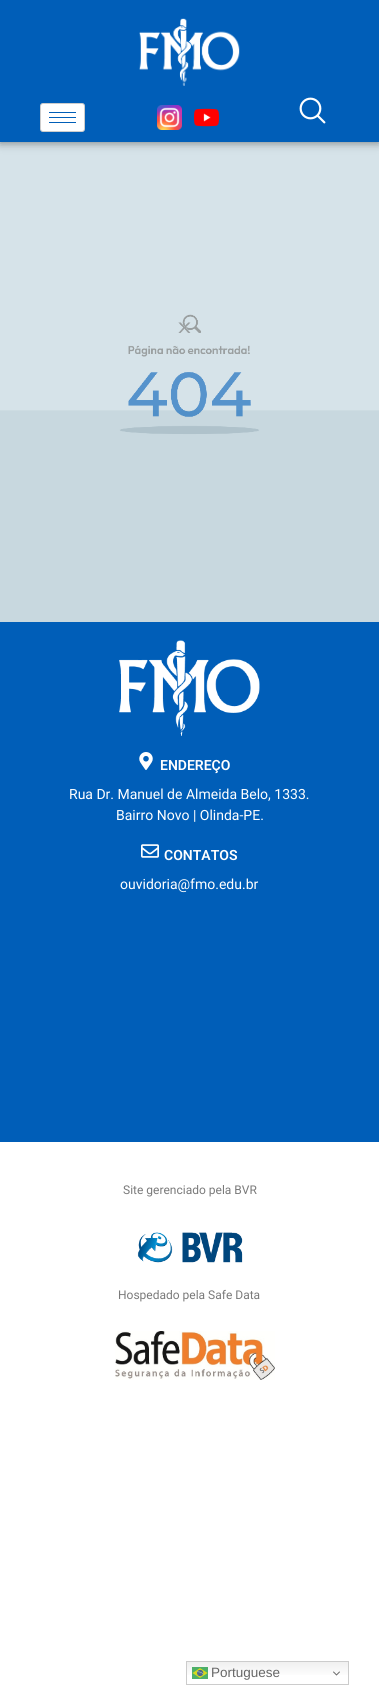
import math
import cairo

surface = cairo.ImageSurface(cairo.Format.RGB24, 379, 1685)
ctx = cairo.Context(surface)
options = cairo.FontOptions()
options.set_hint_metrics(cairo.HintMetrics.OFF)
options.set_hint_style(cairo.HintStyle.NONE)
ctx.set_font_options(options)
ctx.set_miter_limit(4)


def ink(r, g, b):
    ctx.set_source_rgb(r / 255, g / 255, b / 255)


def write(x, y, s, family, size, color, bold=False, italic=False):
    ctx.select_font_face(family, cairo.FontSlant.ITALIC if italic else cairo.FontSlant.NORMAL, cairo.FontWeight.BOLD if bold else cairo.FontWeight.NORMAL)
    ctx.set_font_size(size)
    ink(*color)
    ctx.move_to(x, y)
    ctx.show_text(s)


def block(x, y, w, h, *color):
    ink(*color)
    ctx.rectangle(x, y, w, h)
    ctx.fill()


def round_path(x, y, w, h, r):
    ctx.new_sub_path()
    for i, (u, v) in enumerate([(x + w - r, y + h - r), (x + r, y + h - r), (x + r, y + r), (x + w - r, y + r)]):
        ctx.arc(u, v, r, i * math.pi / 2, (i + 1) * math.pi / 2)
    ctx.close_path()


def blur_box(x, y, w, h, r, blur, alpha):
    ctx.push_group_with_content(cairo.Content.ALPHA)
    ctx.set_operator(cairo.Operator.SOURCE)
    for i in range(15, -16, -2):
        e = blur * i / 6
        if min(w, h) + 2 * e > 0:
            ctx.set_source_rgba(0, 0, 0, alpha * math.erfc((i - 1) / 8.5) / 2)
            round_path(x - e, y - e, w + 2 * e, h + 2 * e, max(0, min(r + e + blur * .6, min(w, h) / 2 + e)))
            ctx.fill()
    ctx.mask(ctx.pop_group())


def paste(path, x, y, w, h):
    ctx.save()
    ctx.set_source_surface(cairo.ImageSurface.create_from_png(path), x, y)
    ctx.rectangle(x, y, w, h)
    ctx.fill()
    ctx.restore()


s1 = dict(family="Roboto SemiBold", size=14, color=(255, 255, 255))
s2 = dict(family="Roboto", size=14, color=(255, 255, 255))
s3 = dict(family="Roboto", size=12, color=(122, 122, 122))
s4 = dict(family="Liberation Sans", size=13.5, color=(102, 102, 102))

ink(255, 255, 255)
ctx.paint()
paste("pic5.png", 0, 142, 379, 480)
ink(0, 0, 0)
blur_box(0, 0, 379, 142, 0, 5, 0.5)
block(0, 0, 379, 142, 0, 94, 184)
paste("pic1.png", 139, 18, 101, 68)
ink(255, 255, 255)
round_path(40, 103, 45, 29, 3)
ctx.fill()
round_path(40.5, 103.5, 44, 28, 2.5)
ctx.set_source_rgba(0, 0, 0, 0.2)
ctx.set_line_width(1)
ctx.stroke()
block(49, 112, 27, 1, 0, 94, 184)
block(49, 117, 27, 1, 0, 94, 184)
block(49, 122, 27, 1, 0, 94, 184)
paste("pic2.png", 157, 105, 25, 25)
paste("pic3.png", 194, 108, 25, 19)
paste("pic4.png", 299, 97, 27, 27)
block(0, 622, 379, 520, 0, 94, 184)
paste("pic6.png", 119, 640, 141, 96)
paste("pic7.png", 139, 752, 14, 18)
write(160, 770, "ENDEREÇO", **s1)
write(69, 799, "Rua Dr. Manuel de Almeida Belo, 1333.", **s2)
write(116, 820, "Bairro Novo | Olinda-PE.", **s2)
paste("pic8.png", 141, 844, 18, 14)
write(164, 860, "CONTATOS", **s1)
write(120, 889, "ouvidoria@fmo.edu.br", **s2)
write(123, 1194, "Site gerenciado pela BVR", **s3)
paste("pic9.png", 137, 1232, 106, 31)
write(118, 1299, "Hospedado pela Safe Data", **s3)
paste("pic10.png", 115, 1331, 160, 49)
gradient = cairo.LinearGradient(268, 1661, 268, 1685)
gradient.add_color_stop_rgba(0, 0.937, 0.937, 0.937, 1)
gradient.add_color_stop_rgba(0.7, 1, 1, 1, 1)
ctx.set_source(gradient)
ctx.rectangle(187, 1662, 161, 13)
ctx.fill()
ctx.rectangle(186.5, 1661.5, 162, 23)
ink(204, 204, 204)
ctx.stroke()
paste("pic11.png", 192, 1667, 16, 12)
write(211, 1677, "Portuguese", **s4)
paste("pic12.png", 333, 1671, 7, 5)
surface.write_to_png("screenshot.png")
